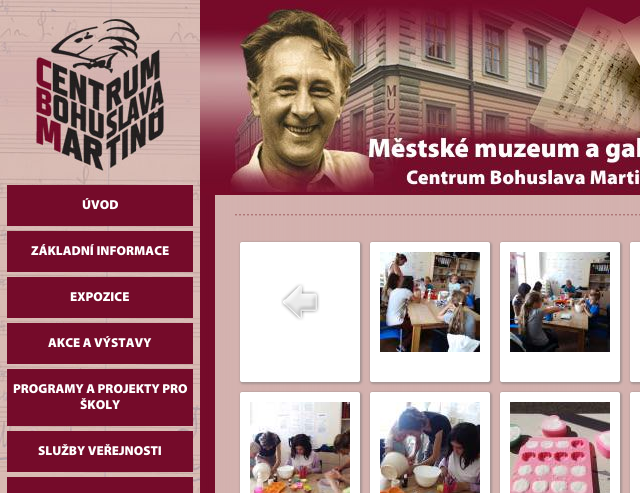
import math
import cairo

surface = cairo.ImageSurface(cairo.Format.RGB24, 640, 493)
ctx = cairo.Context(surface)
options = cairo.FontOptions()
options.set_hint_metrics(cairo.HintMetrics.OFF)
options.set_hint_style(cairo.HintStyle.NONE)
ctx.set_font_options(options)
ctx.set_miter_limit(4)


def ink(r, g, b):
    ctx.set_source_rgb(r / 255, g / 255, b / 255)


def write(x, y, s, family, size, color, bold=False, italic=False):
    ctx.select_font_face(family, cairo.FontSlant.ITALIC if italic else cairo.FontSlant.NORMAL, cairo.FontWeight.BOLD if bold else cairo.FontWeight.NORMAL)
    ctx.set_font_size(size)
    ink(*color)
    ctx.move_to(x, y)
    ctx.show_text(s)


def block(x, y, w, h, *color):
    ink(*color)
    ctx.rectangle(x, y, w, h)
    ctx.fill()


def round_path(x, y, w, h, r):
    ctx.new_sub_path()
    for i, (u, v) in enumerate([(x + w - r, y + h - r), (x + r, y + h - r), (x + r, y + r), (x + w - r, y + r)]):
        ctx.arc(u, v, r, i * math.pi / 2, (i + 1) * math.pi / 2)
    ctx.close_path()


def blur_box(x, y, w, h, r, blur, alpha):
    ctx.push_group_with_content(cairo.Content.ALPHA)
    ctx.set_operator(cairo.Operator.SOURCE)
    for i in range(15, -16, -2):
        e = blur * i / 6
        if min(w, h) + 2 * e > 0:
            ctx.set_source_rgba(0, 0, 0, alpha * math.erfc((i - 1) / 8.5) / 2)
            round_path(x - e, y - e, w + 2 * e, h + 2 * e, max(0, min(r + e + blur * .6, min(w, h) / 2 + e)))
            ctx.fill()
    ctx.mask(ctx.pop_group())


def paste(path, x, y, w, h):
    ctx.save()
    ctx.set_source_surface(cairo.ImageSurface.create_from_png(path), x, y)
    ctx.rectangle(x, y, w, h)
    ctx.fill()
    ctx.restore()


s1 = dict(family="Myriad Black", size=13, color=(255, 255, 255))

ink(255, 255, 255)
ctx.paint()
paste("pic1.png", 200, 195, 440, 298)
paste("pic2.png", 0, 0, 200, 493)
block(7, 185, 186, 41, 117, 11, 42)
write(82, 209, "ÚVOD", **s1)
block(7, 231, 186, 41, 117, 11, 42)
write(31, 255, "ZÁKLADNÍ INFORMACE", **s1)
block(7, 277, 186, 41, 117, 11, 42)
write(70, 301, "EXPOZICE", **s1)
block(7, 323, 186, 41, 117, 11, 42)
write(48, 347, "AKCE A VÝSTAVY", **s1)
block(7, 369, 186, 57, 117, 11, 42)
write(13, 393, "PROGRAMY A PROJEKTY PRO", **s1)
write(80, 409, "ŠKOLY", **s1)
block(7, 431, 186, 41, 117, 11, 42)
write(38, 455, "SLUŽBY VEŘEJNOSTI", **s1)
block(7, 477, 186, 16, 117, 11, 42)
paste("pic3.png", 200, 0, 440, 195)
paste("pic4.png", 235, 214, 405, 2)
ink(120, 120, 120)
blur_box(240, 242, 122, 142, 3, 1, 0.5)
ink(255, 255, 255)
round_path(240, 242, 120, 140, 2)
ctx.fill()
paste("pic5.png", 281, 283, 39, 38)
ink(120, 120, 120)
blur_box(370, 242, 122, 142, 3, 1, 0.5)
ink(255, 255, 255)
round_path(370, 242, 120, 140, 2)
ctx.fill()
paste("pic6.png", 380, 252, 100, 100)
ink(120, 120, 120)
blur_box(500, 242, 122, 142, 3, 1, 0.5)
ink(255, 255, 255)
round_path(500, 242, 120, 140, 2)
ctx.fill()
paste("pic7.png", 510, 252, 100, 100)
ink(120, 120, 120)
blur_box(630, 242, 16, 142, 3, 1, 0.5)
ink(255, 255, 255)
round_path(630, 242, 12, 140, 2)
ctx.fill()
ink(120, 120, 120)
blur_box(240, 392, 122, 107, 3, 1, 0.5)
ink(255, 255, 255)
round_path(240, 392, 120, 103, 2)
ctx.fill()
paste("pic8.png", 250, 402, 100, 91)
ink(120, 120, 120)
blur_box(370, 392, 122, 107, 3, 1, 0.5)
ink(255, 255, 255)
round_path(370, 392, 120, 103, 2)
ctx.fill()
paste("pic9.png", 380, 402, 100, 91)
ink(120, 120, 120)
blur_box(500, 392, 122, 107, 3, 1, 0.5)
ink(255, 255, 255)
round_path(500, 392, 120, 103, 2)
ctx.fill()
paste("pic10.png", 510, 402, 100, 91)
ink(120, 120, 120)
blur_box(630, 392, 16, 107, 3, 1, 0.5)
ink(255, 255, 255)
round_path(630, 392, 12, 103, 2)
ctx.fill()
surface.write_to_png("screenshot.png")
